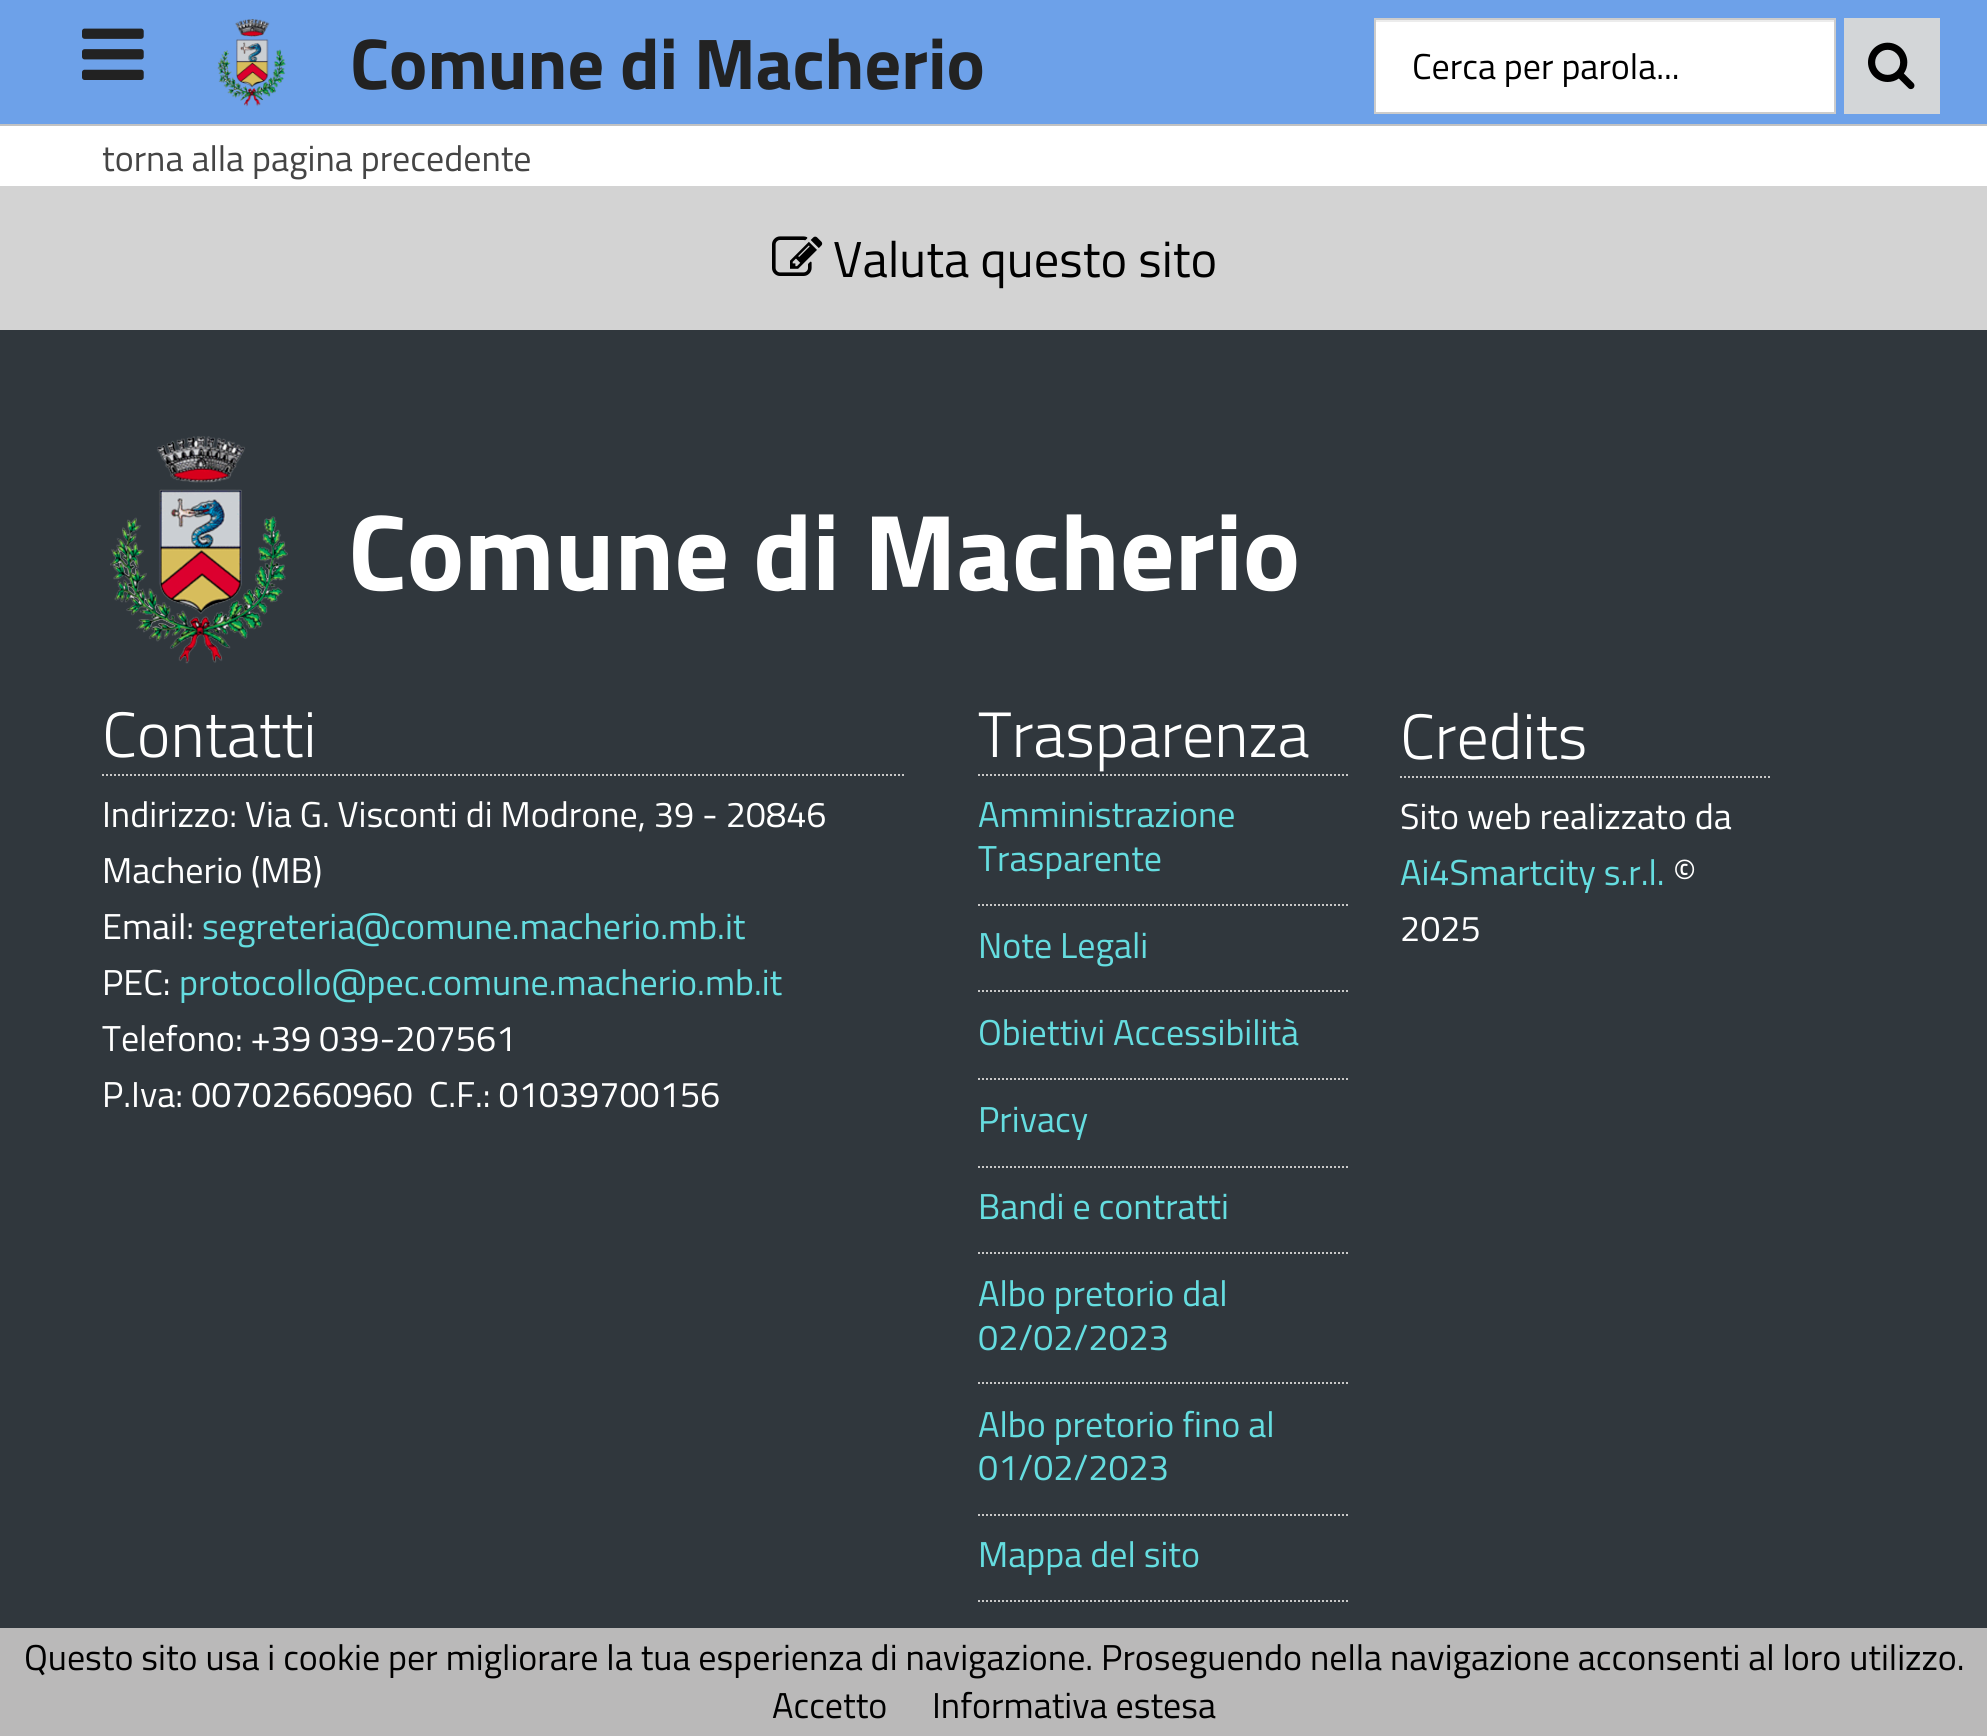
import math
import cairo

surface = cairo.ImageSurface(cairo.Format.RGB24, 1987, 1736)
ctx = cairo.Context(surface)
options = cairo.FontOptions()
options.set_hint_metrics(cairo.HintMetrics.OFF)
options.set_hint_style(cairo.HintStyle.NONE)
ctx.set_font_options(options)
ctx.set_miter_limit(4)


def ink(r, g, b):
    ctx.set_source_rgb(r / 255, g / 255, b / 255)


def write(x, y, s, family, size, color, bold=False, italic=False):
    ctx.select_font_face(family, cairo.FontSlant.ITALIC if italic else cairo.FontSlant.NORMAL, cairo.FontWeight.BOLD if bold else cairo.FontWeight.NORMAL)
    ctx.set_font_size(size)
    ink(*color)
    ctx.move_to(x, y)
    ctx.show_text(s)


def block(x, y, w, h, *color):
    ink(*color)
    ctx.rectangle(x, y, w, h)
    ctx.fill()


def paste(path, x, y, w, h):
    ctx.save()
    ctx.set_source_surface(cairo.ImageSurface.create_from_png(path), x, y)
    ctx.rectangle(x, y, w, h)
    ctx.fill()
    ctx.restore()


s1 = dict(family="Titillium Web", size=72, color=(34, 34, 34), bold=True)
s2 = dict(family="Titillium Web", size=36, color=(0, 0, 0))
s3 = dict(family="Titillium Web", size=36, color=(69, 69, 69))
s4 = dict(family="Titillium Web", size=50.5, color=(0, 0, 0))
s5 = dict(family="Titillium Web", size=108, color=(255, 255, 255), bold=True)
s6 = dict(family="Titillium Web Light", size=64, color=(255, 255, 255))
s7 = dict(family="Titillium Web", size=36, color=(255, 255, 255))
s8 = dict(family="Titillium Web", size=36, color=(101, 221, 224))

ink(255, 255, 255)
ctx.paint()
block(0, 124, 1987, 2, 194, 194, 194)
block(0, 0, 1987, 124, 109, 161, 233)
paste("pic1.png", 82, 28, 62, 52)
paste("pic2.png", 217, 19, 69, 88)
write(350, 89, "Comune di Macherio", **s1)
block(1376, 22, 458, 90, 255, 255, 255)
block(1376, 20, 458, 2, 236, 236, 236)
ctx.rectangle(1375, 19, 460, 94)
ink(204, 204, 204)
ctx.stroke()
write(1412, 79, "Cerca per parola...", **s2)
block(1844, 18, 96, 96, 211, 214, 216)
paste("pic3.png", 1868, 42, 47, 48)
write(102, 171, "torna alla pagina precedente", **s3)
block(0, 186, 1987, 144, 211, 211, 211)
paste("pic4.png", 772, 236, 51, 40)
write(833, 277, "Valuta questo sito", **s4)
block(0, 330, 1987, 1298, 48, 55, 61)
paste("pic5.png", 110, 436, 178, 228)
write(348, 590, "Comune di Macherio", **s5)
write(102, 757, "Contatti", **s6)
ctx.new_path()
ctx.move_to(102, 775)
ctx.line_to(904, 775)
ink(200, 200, 200)
ctx.set_dash([2, 2])
ctx.stroke()
write(102, 827, "Indirizzo: Via G. Visconti di Modrone, 39 - 20846", **s7)
write(102, 883, "Macherio (MB)", **s7)
write(102, 939, "Email:", **s7)
write(202, 939, "segreteria@comune.macherio.mb.it", **s8)
write(102, 995, "PEC:", **s7)
write(179, 995, "protocollo@pec.comune.macherio.mb.it", **s8)
write(102, 1051, "Telefono: +39 039-207561", **s7)
write(102, 1107, "P.Iva: 00702660960  C.F.: 01039700156", **s7)
write(978, 757, "Trasparenza", **s6)
ctx.new_path()
ctx.move_to(978, 775)
ctx.line_to(1348, 775)
ink(200, 200, 200)
ctx.stroke()
write(978, 827, "Amministrazione", **s8)
write(978, 871, "Trasparente", **s8)
ctx.new_path()
ctx.move_to(978, 905)
ctx.line_to(1348, 905)
ink(200, 200, 200)
ctx.stroke()
write(978, 958, "Note Legali", **s8)
ctx.new_path()
ctx.move_to(978, 991)
ctx.line_to(1348, 991)
ink(200, 200, 200)
ctx.stroke()
write(978, 1045, "Obiettivi Accessibilità", **s8)
ctx.new_path()
ctx.move_to(978, 1079)
ctx.line_to(1348, 1079)
ink(200, 200, 200)
ctx.stroke()
write(978, 1132, "Privacy", **s8)
ctx.new_path()
ctx.move_to(978, 1167)
ctx.line_to(1348, 1167)
ink(200, 200, 200)
ctx.stroke()
write(978, 1219, "Bandi e contratti", **s8)
ctx.new_path()
ctx.move_to(978, 1253)
ctx.line_to(1348, 1253)
ink(200, 200, 200)
ctx.stroke()
write(978, 1306, "Albo pretorio dal", **s8)
write(978, 1350, "02/02/2023", **s8)
ctx.new_path()
ctx.move_to(978, 1383)
ctx.line_to(1348, 1383)
ink(200, 200, 200)
ctx.stroke()
write(978, 1437, "Albo pretorio fino al", **s8)
write(978, 1480, "01/02/2023", **s8)
ctx.new_path()
ctx.move_to(978, 1515)
ctx.line_to(1348, 1515)
ink(200, 200, 200)
ctx.stroke()
write(978, 1567, "Mappa del sito", **s8)
ctx.new_path()
ctx.move_to(978, 1601)
ctx.line_to(1348, 1601)
ink(200, 200, 200)
ctx.stroke()
write(1400, 759, "Credits", **s6)
ctx.new_path()
ctx.move_to(1400, 777)
ctx.line_to(1770, 777)
ink(200, 200, 200)
ctx.stroke()
write(1400, 829, "Sito web realizzato da", **s7)
write(1400, 885, "Ai4Smartcity s.r.l.", **s8)
write(1673, 885, "©", **s7)
write(1400, 941, "2025", **s7)
block(0, 1628, 1987, 108, 186, 185, 185)
write(24, 1670, "Questo sito usa i cookie per migliorare la tua esperienza di navigazione. Proseguendo nella navigazione acconsenti al loro utilizzo.", **s2)
write(772, 1718, "Accetto", **s2)
write(932, 1718, "Informativa estesa", **s2)
surface.write_to_png("screenshot.png")
